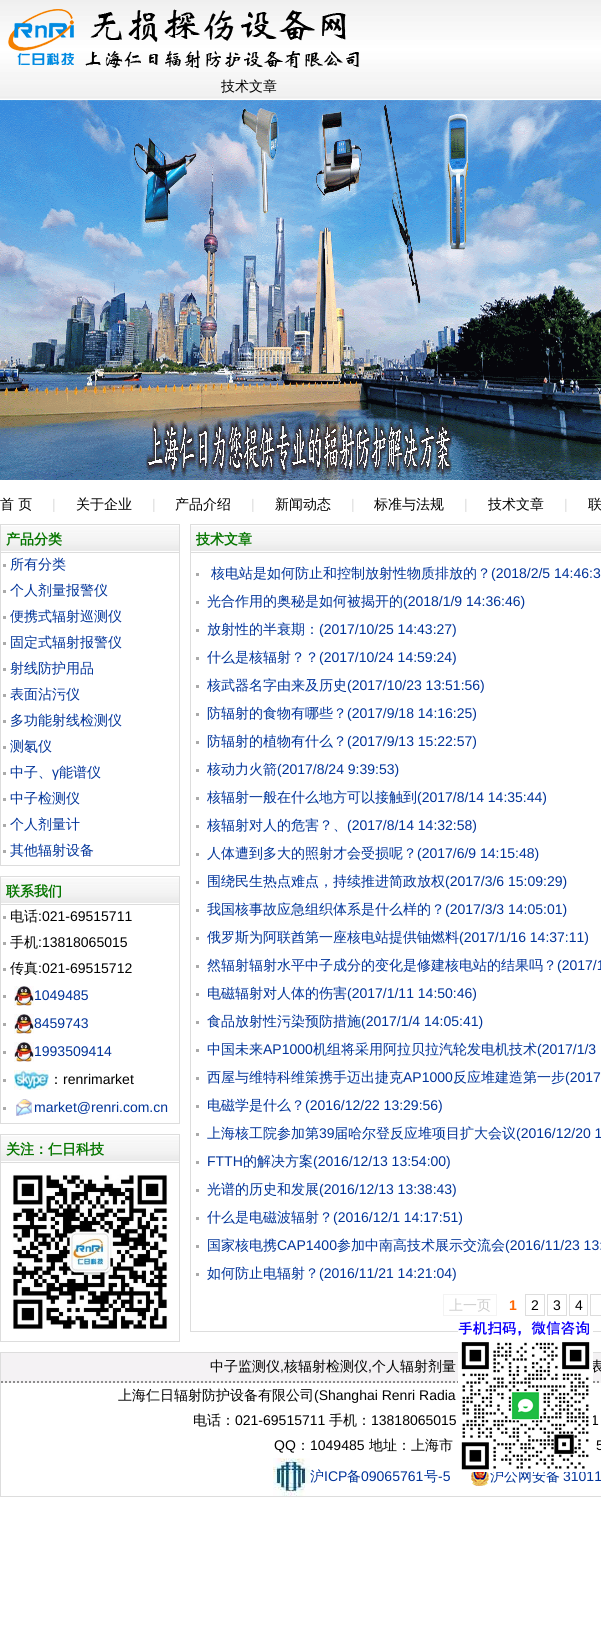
import math
import cairo

surface = cairo.ImageSurface(cairo.Format.RGB24, 601, 1629)
ctx = cairo.Context(surface)
options = cairo.FontOptions()
options.set_hint_metrics(cairo.HintMetrics.OFF)
options.set_hint_style(cairo.HintStyle.NONE)
ctx.set_font_options(options)
ctx.set_miter_limit(4)


def ink(r, g, b):
    ctx.set_source_rgb(r / 255, g / 255, b / 255)


def write(x, y, s, family, size, color, bold=False, italic=False):
    ctx.select_font_face(family, cairo.FontSlant.ITALIC if italic else cairo.FontSlant.NORMAL, cairo.FontWeight.BOLD if bold else cairo.FontWeight.NORMAL)
    ctx.set_font_size(size)
    ink(*color)
    ctx.move_to(x, y)
    ctx.show_text(s)


def block(x, y, w, h, *color):
    ink(*color)
    ctx.rectangle(x, y, w, h)
    ctx.fill()


def paste(path, x, y, w, h):
    ctx.save()
    ctx.set_source_surface(cairo.ImageSurface.create_from_png(path), x, y)
    ctx.rectangle(x, y, w, h)
    ctx.fill()
    ctx.restore()


s1 = dict(family="WenQuanYi Zen Hei Medium", size=14, color=(0, 0, 0))
s2 = dict(family="Liberation Sans", size=14, color=(221, 221, 221))
s3 = dict(family="Liberation Sans", size=14, color=(0, 0, 0))
s4 = dict(family="WenQuanYi Zen Hei Medium", size=14, color=(0, 51, 153))
s5 = dict(family="Liberation Sans", size=14, color=(0, 51, 153))
s6 = dict(family="WenQuanYi Zen Hei", size=14, color=(6, 118, 0), bold=True)
s7 = dict(family="WenQuanYi Zen Hei Medium", size=14, color=(204, 204, 204))
s8 = dict(family="Liberation Sans", size=14, color=(255, 102, 0), bold=True)

ink(255, 255, 255)
ctx.paint()
paste("pic1.png", 0, 0, 601, 99)
paste("pic2.png", 8, 9, 351, 59)
write(221, 91, "技术文章", **s1)
paste("pic3.png", 0, 100, 601, 380)
write(0, 509, "首 页", **s1)
write(52, 509, "|", **s2)
write(76, 509, "关于企业", **s1)
write(152, 509, "|", **s2)
write(175, 509, "产品介绍", **s1)
write(251, 509, "|", **s2)
write(275, 509, "新闻动态", **s1)
write(351, 509, "|", **s2)
write(374, 509, "标准与法规", **s1)
write(464, 509, "|", **s2)
write(488, 509, "技术文章", **s1)
write(564, 509, "|", **s2)
write(588, 509, "联", **s1)
ctx.rectangle(190.5, 524.5, 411, 807)
ink(221, 221, 221)
ctx.set_line_width(1)
ctx.stroke()
block(1, 1353, 600, 30, 244, 242, 244)
ctx.rectangle(0.5, 1352.5, 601, 144)
ink(221, 221, 221)
ctx.stroke()
ctx.new_path()
ctx.move_to(1, 1382)
ctx.line_to(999, 1382)
ink(141, 141, 141)
ctx.set_line_width(2)
ctx.set_dash([2, 2])
ctx.stroke()
write(590, 1371, "表", **s1)
write(591, 1425, "1", **s3)
write(490, 1481, "沪公网安备", **s4)
write(563, 1481, "31011", **s5)
paste("pic4.png", 458, 1321, 135, 151)
ctx.rectangle(0.5, 524.5, 179, 341)
ink(221, 221, 221)
ctx.set_line_width(1)
ctx.set_dash([])
ctx.stroke()
paste("pic5.png", 1, 526, 178, 27)
write(6, 544, "产品分类", **s6)
block(3, 564, 3, 3, 170, 170, 170)
write(10, 569, "所有分类", **s4)
block(3, 590, 3, 3, 170, 170, 170)
write(10, 595, "个人剂量报警仪", **s4)
block(3, 616, 3, 3, 170, 170, 170)
write(10, 621, "便携式辐射巡测仪", **s4)
block(3, 642, 3, 3, 170, 170, 170)
write(10, 647, "固定式辐射报警仪", **s4)
block(3, 668, 3, 3, 170, 170, 170)
write(10, 673, "射线防护用品", **s4)
block(3, 694, 3, 3, 170, 170, 170)
write(10, 699, "表面沾污仪", **s4)
block(3, 720, 3, 3, 170, 170, 170)
write(10, 725, "多功能射线检测仪", **s4)
block(3, 746, 3, 3, 170, 170, 170)
write(10, 751, "测氡仪", **s4)
block(3, 772, 3, 3, 170, 170, 170)
write(10, 777, "中子、", **s4)
write(52, 777, "γ", **s5)
write(59, 777, "能谱仪", **s4)
block(3, 798, 3, 3, 170, 170, 170)
write(10, 803, "中子检测仪", **s4)
block(3, 824, 3, 3, 170, 170, 170)
write(10, 829, "个人剂量计", **s4)
block(3, 850, 3, 3, 170, 170, 170)
write(10, 855, "其他辐射设备", **s4)
ctx.rectangle(0.5, 876.5, 179, 247)
ink(221, 221, 221)
ctx.stroke()
paste("pic5.png", 1, 878, 178, 27)
write(6, 896, "联系我们", **s6)
block(3, 916, 3, 3, 170, 170, 170)
write(10, 921, "电话", **s1)
write(38, 921, ":021-69515711", **s3)
block(3, 942, 3, 3, 170, 170, 170)
write(10, 947, "手机", **s1)
write(38, 947, ":13818065015", **s3)
block(3, 968, 3, 3, 170, 170, 170)
write(10, 973, "传真", **s1)
write(38, 973, ":021-69515712", **s3)
block(3, 995, 3, 3, 170, 170, 170)
paste("pic6.png", 14, 986, 20, 20)
write(34, 1000, "1049485", **s5)
block(3, 1023, 3, 3, 170, 170, 170)
paste("pic6.png", 14, 1014, 20, 20)
write(34, 1028, "8459743", **s5)
block(3, 1051, 3, 3, 170, 170, 170)
paste("pic7.png", 14, 1042, 20, 20)
write(34, 1056, "1993509414", **s5)
block(3, 1079, 3, 3, 170, 170, 170)
paste("pic8.png", 14, 1070, 35, 20)
write(49, 1084, "：", **s1)
write(63, 1084, "renrimarket", **s3)
block(3, 1107, 3, 3, 170, 170, 170)
paste("pic9.png", 16, 1099, 16, 17)
write(34, 1112, "market@renri.com.cn", **s5)
ctx.rectangle(0.5, 1134.5, 179, 207)
ink(221, 221, 221)
ctx.stroke()
paste("pic5.png", 1, 1136, 178, 27)
write(6, 1154, "关注：仁日科技", **s6)
paste("pic10.png", 12, 1174, 156, 156)
paste("pic11.png", 191, 526, 410, 27)
write(196, 544, "技术文章", **s6)
block(196, 573, 3, 3, 170, 170, 170)
write(211, 578, "核电站是如何防止和控制放射性物质排放的？", **s4)
write(491, 578, "(2018/2/5 14:46:3", **s5)
block(196, 601, 3, 3, 170, 170, 170)
write(207, 606, "光合作用的奥秘是如何被揭开的", **s4)
write(403, 606, "(2018/1/9 14:36:46)", **s5)
block(196, 629, 3, 3, 170, 170, 170)
write(207, 634, "放射性的半衰期：", **s4)
write(319, 634, "(2017/10/25 14:43:27)", **s5)
block(196, 657, 3, 3, 170, 170, 170)
write(207, 662, "什么是核辐射？？", **s4)
write(319, 662, "(2017/10/24 14:59:24)", **s5)
block(196, 685, 3, 3, 170, 170, 170)
write(207, 690, "核武器名字由来及历史", **s4)
write(347, 690, "(2017/10/23 13:51:56)", **s5)
block(196, 713, 3, 3, 170, 170, 170)
write(207, 718, "防辐射的食物有哪些？", **s4)
write(347, 718, "(2017/9/18 14:16:25)", **s5)
block(196, 741, 3, 3, 170, 170, 170)
write(207, 746, "防辐射的植物有什么？", **s4)
write(347, 746, "(2017/9/13 15:22:57)", **s5)
block(196, 769, 3, 3, 170, 170, 170)
write(207, 774, "核动力火箭", **s4)
write(277, 774, "(2017/8/24 9:39:53)", **s5)
block(196, 797, 3, 3, 170, 170, 170)
write(207, 802, "核辐射一般在什么地方可以接触到", **s4)
write(417, 802, "(2017/8/14 14:35:44)", **s5)
block(196, 825, 3, 3, 170, 170, 170)
write(207, 830, "核辐射对人的危害？、", **s4)
write(347, 830, "(2017/8/14 14:32:58)", **s5)
block(196, 853, 3, 3, 170, 170, 170)
write(207, 858, "人体遭到多大的照射才会受损呢？", **s4)
write(417, 858, "(2017/6/9 14:15:48)", **s5)
block(196, 881, 3, 3, 170, 170, 170)
write(207, 886, "围绕民生热点难点，持续推进简政放权", **s4)
write(445, 886, "(2017/3/6 15:09:29)", **s5)
block(196, 909, 3, 3, 170, 170, 170)
write(207, 914, "我国核事故应急组织体系是什么样的？", **s4)
write(445, 914, "(2017/3/3 14:05:01)", **s5)
block(196, 937, 3, 3, 170, 170, 170)
write(207, 942, "俄罗斯为阿联酋第一座核电站提供铀燃料", **s4)
write(459, 942, "(2017/1/16 14:37:11)", **s5)
block(196, 965, 3, 3, 170, 170, 170)
write(207, 970, "然辐射辐射水平中子成分的变化是修建核电站的结果吗？", **s4)
write(557, 970, "(2017/1", **s5)
block(196, 993, 3, 3, 170, 170, 170)
write(207, 998, "电磁辐射对人体的伤害", **s4)
write(347, 998, "(2017/1/11 14:50:46)", **s5)
block(196, 1021, 3, 3, 170, 170, 170)
write(207, 1026, "食品放射性污染预防措施", **s4)
write(361, 1026, "(2017/1/4 14:05:41)", **s5)
block(196, 1049, 3, 3, 170, 170, 170)
write(207, 1054, "中国未来", **s4)
write(263, 1054, "AP1000", **s5)
write(313, 1054, "机组将采用阿拉贝拉汽轮发电机技术", **s4)
write(537, 1054, "(2017/1/3", **s5)
block(196, 1077, 3, 3, 170, 170, 170)
write(207, 1082, "西屋与维特科维策携手迈出捷克", **s4)
write(403, 1082, "AP1000", **s5)
write(453, 1082, "反应堆建造第一步", **s4)
write(565, 1082, "(2017", **s5)
block(196, 1105, 3, 3, 170, 170, 170)
write(207, 1110, "电磁学是什么？", **s4)
write(305, 1110, "(2016/12/22 13:29:56)", **s5)
block(196, 1133, 3, 3, 170, 170, 170)
write(207, 1138, "上海核工院参加第", **s4)
write(319, 1138, "39", **s5)
write(334, 1138, "届哈尔登反应堆项目扩大会议", **s4)
write(516, 1138, "(2016/12/20 1", **s5)
block(196, 1161, 3, 3, 170, 170, 170)
write(207, 1166, "FTTH", **s5)
write(243, 1166, "的解决方案", **s4)
write(313, 1166, "(2016/12/13 13:54:00)", **s5)
block(196, 1189, 3, 3, 170, 170, 170)
write(207, 1194, "光谱的历史和发展", **s4)
write(319, 1194, "(2016/12/13 13:38:43)", **s5)
block(196, 1217, 3, 3, 170, 170, 170)
write(207, 1222, "什么是电磁波辐射？", **s4)
write(333, 1222, "(2016/12/1 14:17:51)", **s5)
block(196, 1245, 3, 3, 170, 170, 170)
write(207, 1250, "国家核电携", **s4)
write(277, 1250, "CAP1400", **s5)
write(337, 1250, "参加中南高技术展示交流会", **s4)
write(505, 1250, "(2016/11/23 13:", **s5)
block(196, 1273, 3, 3, 170, 170, 170)
write(207, 1278, "如何防止电辐射？", **s4)
write(319, 1278, "(2016/11/21 14:21:04)", **s5)
ctx.rectangle(443.5, 1294.5, 53, 21)
ink(243, 243, 243)
ctx.stroke()
write(449, 1310, "上一页", **s7)
write(509, 1310, "1", **s8)
ctx.rectangle(525.5, 1294.5, 19, 21)
ink(221, 221, 221)
ctx.stroke()
write(531, 1310, "2", **s3)
ctx.rectangle(547.5, 1294.5, 19, 21)
ink(221, 221, 221)
ctx.stroke()
write(553, 1310, "3", **s3)
ctx.rectangle(569.5, 1294.5, 18, 21)
ink(221, 221, 221)
ctx.stroke()
write(575, 1310, "4", **s3)
ctx.rectangle(590.5, 1294.5, 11, 21)
ink(221, 221, 221)
ctx.stroke()
write(210, 1371, "中子监测仪", **s1)
write(280, 1371, ",", **s3)
write(284, 1371, "核辐射检测仪", **s1)
write(368, 1371, ",", **s3)
write(372, 1371, "个人辐射剂量", **s1)
write(118, 1400, "上海仁日辐射防护设备有限公司", **s1)
write(314, 1400, "(Shanghai Renri Radia", **s3)
write(193, 1425, "电话：", **s1)
write(235, 1425, "021-69515711", **s3)
write(329, 1425, "手机：", **s1)
write(371, 1425, "13818065015", **s3)
write(274, 1450, "QQ", **s3)
write(296, 1450, "：", **s1)
write(310, 1450, "1049485", **s3)
write(369, 1450, "地址：上海市", **s1)
write(596, 1450, "5", **s3)
paste("pic12.png", 273, 1458, 37, 38)
write(310, 1481, "沪", **s4)
write(324, 1481, "ICP", **s5)
write(347, 1481, "备", **s4)
write(361, 1481, "09065761", **s5)
write(424, 1481, "号", **s4)
write(438, 1481, "-5", **s5)
paste("pic13.png", 471, 1472, 18, 14)
surface.write_to_png("screenshot.png")
